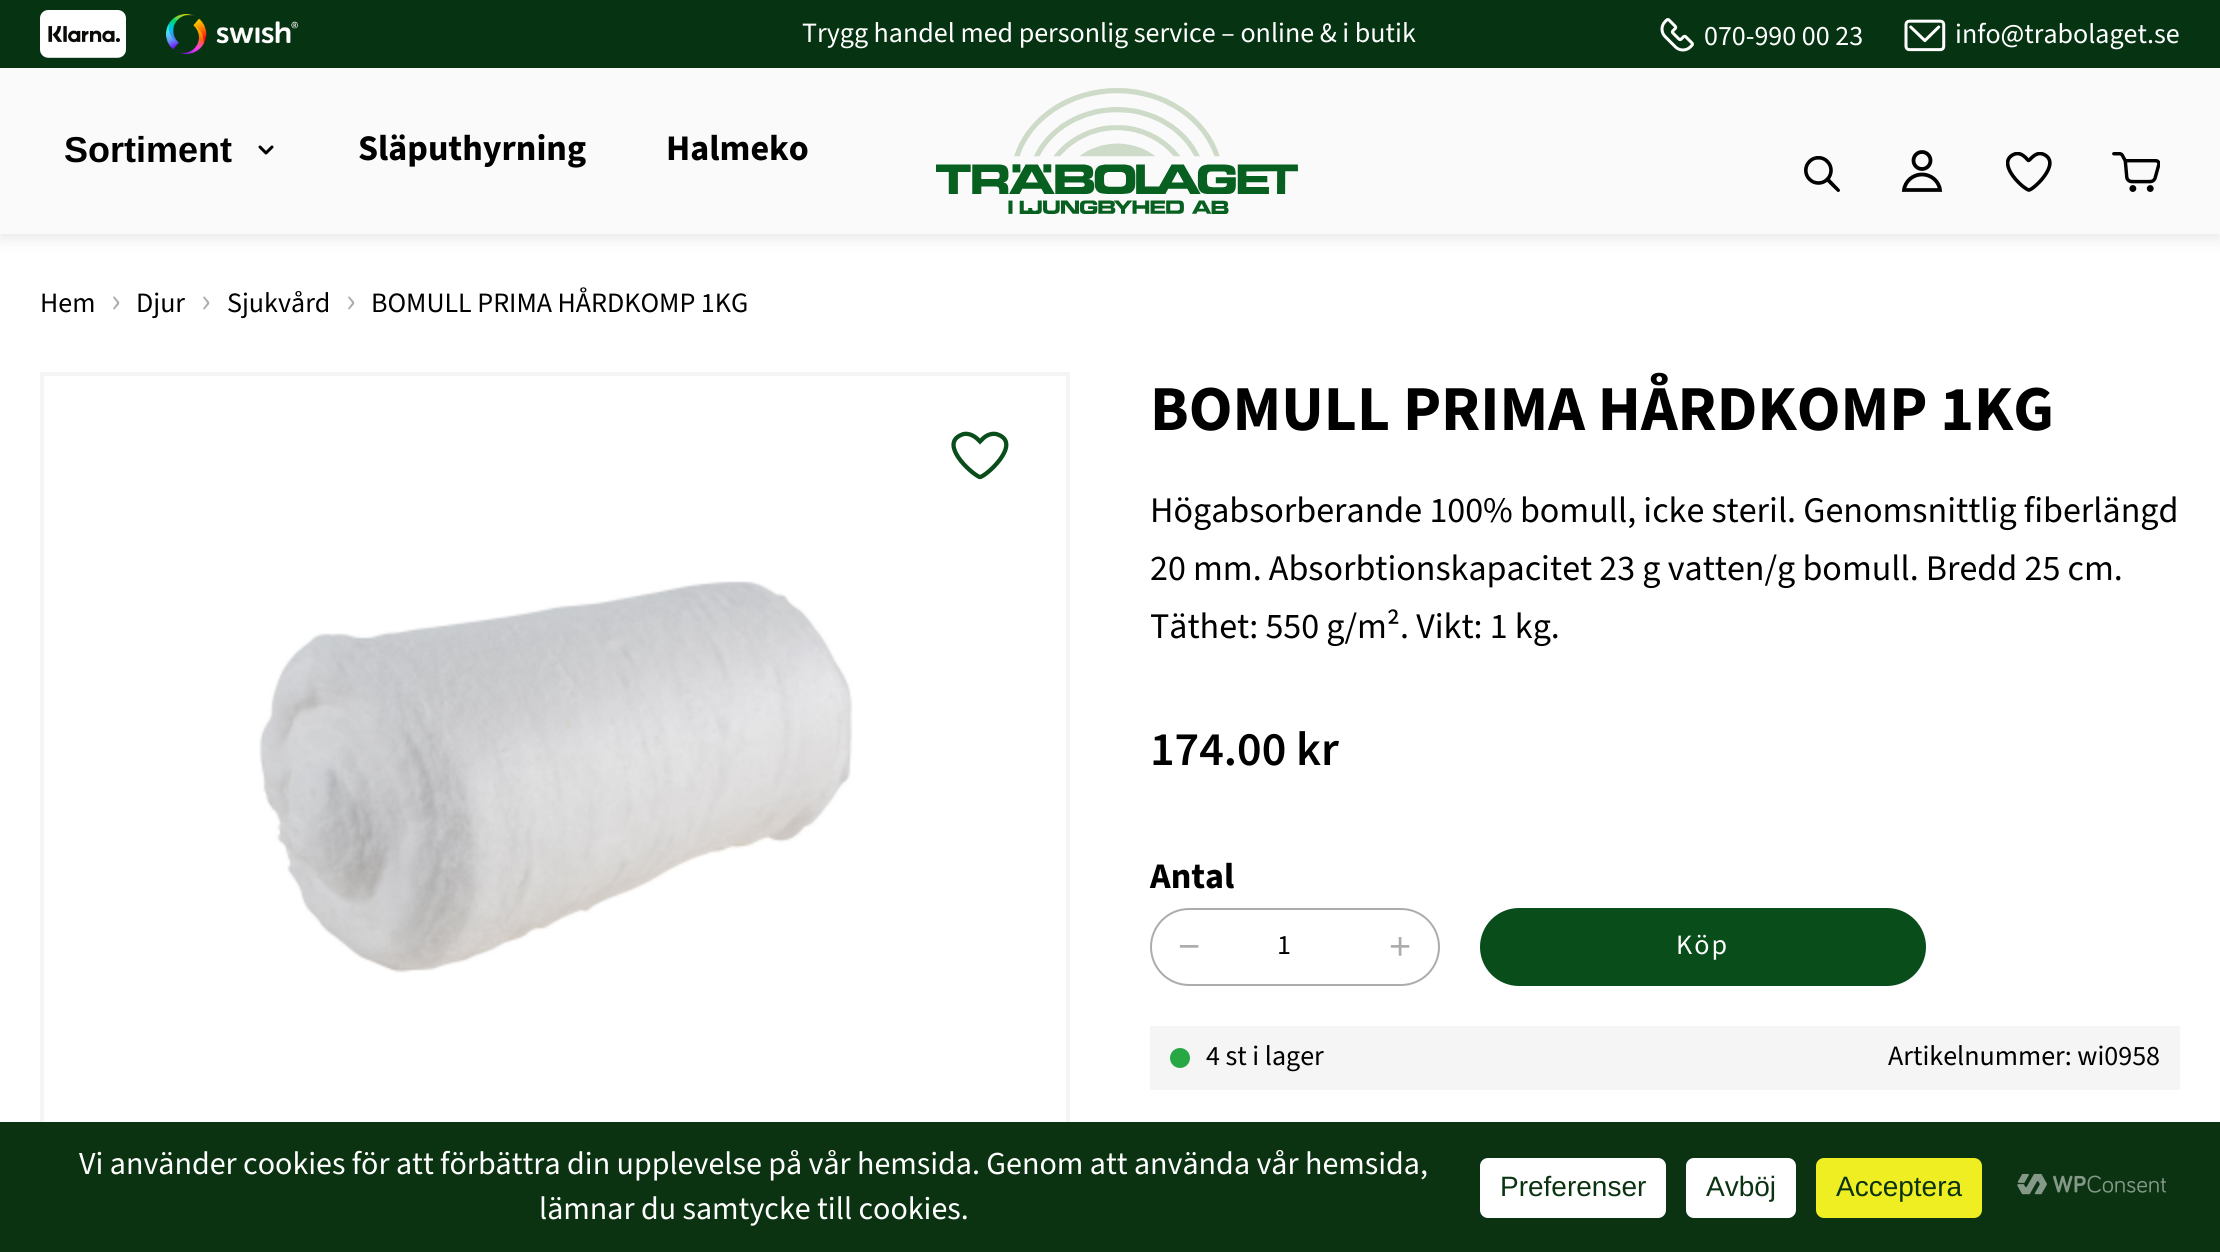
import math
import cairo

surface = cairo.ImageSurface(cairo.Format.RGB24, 2220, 1252)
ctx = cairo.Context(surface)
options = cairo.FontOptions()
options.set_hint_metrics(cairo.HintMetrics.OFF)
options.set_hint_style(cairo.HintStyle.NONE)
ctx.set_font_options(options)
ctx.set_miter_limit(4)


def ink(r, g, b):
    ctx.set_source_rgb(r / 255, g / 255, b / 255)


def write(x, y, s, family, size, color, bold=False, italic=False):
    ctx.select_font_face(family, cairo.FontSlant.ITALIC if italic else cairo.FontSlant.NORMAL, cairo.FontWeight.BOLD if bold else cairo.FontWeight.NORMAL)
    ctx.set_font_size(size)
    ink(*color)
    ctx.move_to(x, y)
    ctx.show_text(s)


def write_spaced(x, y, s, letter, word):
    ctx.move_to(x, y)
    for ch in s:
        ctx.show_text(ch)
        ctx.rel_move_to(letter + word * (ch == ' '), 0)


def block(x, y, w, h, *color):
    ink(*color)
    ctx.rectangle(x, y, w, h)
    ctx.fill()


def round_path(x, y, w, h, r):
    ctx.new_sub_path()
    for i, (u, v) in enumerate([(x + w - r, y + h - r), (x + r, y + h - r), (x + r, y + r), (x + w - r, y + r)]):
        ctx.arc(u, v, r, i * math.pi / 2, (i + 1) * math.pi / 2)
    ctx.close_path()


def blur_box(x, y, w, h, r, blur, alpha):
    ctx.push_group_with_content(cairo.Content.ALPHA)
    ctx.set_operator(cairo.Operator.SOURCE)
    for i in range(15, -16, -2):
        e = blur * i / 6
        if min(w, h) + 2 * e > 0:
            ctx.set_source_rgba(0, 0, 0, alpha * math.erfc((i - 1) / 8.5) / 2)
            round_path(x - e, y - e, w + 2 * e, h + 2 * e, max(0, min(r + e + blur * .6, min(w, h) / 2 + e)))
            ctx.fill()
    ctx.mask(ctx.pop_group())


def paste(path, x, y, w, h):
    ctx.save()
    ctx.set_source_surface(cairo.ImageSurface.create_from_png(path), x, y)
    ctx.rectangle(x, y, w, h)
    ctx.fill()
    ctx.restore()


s1 = dict(family="Source Sans 3", size=28, color=(255, 255, 255))
s2 = dict(family="Liberation Sans", size=36, color=(0, 0, 0), bold=True)
s3 = dict(family="Source Sans 3", size=36, color=(0, 0, 0), bold=True)
s4 = dict(family="Source Sans 3", size=28, color=(0, 0, 0))
s5 = dict(family="Source Sans 3", size=36, color=(172, 172, 172))
s6 = dict(family="Source Sans 3", size=64, color=(0, 0, 0), bold=True)
s7 = dict(family="Source Sans 3", size=36, color=(0, 0, 0))
s8 = dict(family="Source Sans 3 SemiBold", size=48, color=(0, 0, 0))
s9 = dict(family="Liberation Sans", size=38, color=(172, 172, 172))
s10 = dict(family="Source Sans 3", size=32, color=(255, 255, 255))
s11 = dict(family="Liberation Sans", size=28, color=(11, 51, 18))

ink(255, 255, 255)
ctx.paint()
ink(0, 0, 0)
blur_box(0, 4, 2220, 234, 0, 8, 0.1)
block(0, 0, 2220, 68, 6, 51, 18)
paste("pic1.png", 40, 10, 86, 48)
paste("pic2.png", 166, 14, 132, 40)
write(802, 42, "Trygg handel med personlig service – online & i butik", **s1)
paste("pic3.png", 1660, 18, 34, 34)
write(1704, 45, "070-990 00 23", **s1)
paste("pic4.png", 1904, 19, 42, 33)
write(1955, 43, "info@trabolaget.se", **s1)
block(0, 68, 2220, 166, 250, 250, 250)
write(64, 162, "Sortiment", **s2)
ctx.new_path()
ctx.move_to(260, 147)
ctx.line_to(266, 153)
ctx.line_to(272, 147)
ctx.set_line_width(3)
ctx.set_line_cap(cairo.LineCap.ROUND)
ctx.set_line_join(cairo.LineJoin.ROUND)
ctx.stroke()
write(358, 160, "Släputhyrning", **s3)
write(666, 160, "Halmeko", **s3)
paste("pic5.png", 936, 88, 362, 126)
paste("pic6.png", 1804, 156, 36, 36)
ctx.arc(1922, 160.5, 8.5, 0, 2 * math.pi)
ctx.set_line_width(3.8)
ctx.set_line_cap(cairo.LineCap.BUTT)
ctx.set_line_join(cairo.LineJoin.MITER)
ctx.stroke()
ctx.new_path()
ctx.move_to(1922, 174.5)
ctx.curve_to(1931.5, 174.5, 1939, 181.5, 1940, 190)
ctx.line_to(1904, 190)
ctx.curve_to(1905, 181.5, 1912.5, 174.5, 1922, 174.5)
ctx.close_path()
ctx.stroke()
ctx.save()
ctx.rectangle(2006, 152, 46, 40)
ctx.clip()
ctx.new_path()
ctx.move_to(2028.5, 190)
ctx.curve_to(2031.5, 191.5, 2062.5, 163.5, 2044, 154.5)
ctx.curve_to(2035.5, 150.5, 2030, 160.5, 2028.5, 160.5)
ctx.curve_to(2027.5, 160.5, 2022, 150.5, 2013.5, 154.5)
ctx.curve_to(1997, 162.5, 2019.5, 186, 2028.5, 190)
ctx.close_path()
ctx.set_line_width(3.6)
ctx.stroke()
ctx.restore()
paste("pic7.png", 2112, 152, 48, 40)
write(40, 312, "Hem", **s4)
write(111, 312, "›", **s5)
write(136, 312, "Djur", **s4)
write(201, 312, "›", **s5)
write(227, 312, "Sjukvård", **s4)
write(346, 312, "›", **s5)
write(371, 312, "BOMULL PRIMA HÅRDKOMP 1KG", **s4)
ctx.rectangle(42, 374, 1026, 804)
ink(246, 245, 245)
ctx.set_line_width(4)
ctx.stroke()
paste("pic8.png", 259, 581, 594, 392)
ctx.new_path()
ctx.move_to(979.5, 477)
ctx.curve_to(983.5, 478.5, 1022, 445, 999, 435)
ctx.curve_to(993, 432, 986, 435, 982, 439.5)
ctx.line_to(980, 441.5)
ctx.line_to(978, 439.5)
ctx.curve_to(973.5, 435, 966.5, 432, 961, 435)
ctx.curve_to(940, 444, 969, 472, 979.5, 477)
ctx.close_path()
ink(9, 77, 27)
ctx.set_line_width(4.3)
ctx.stroke()
write(1150, 430, "BOMULL PRIMA HÅRDKOMP 1KG", **s6)
write(1150, 522, "Högabsorberande 100% bomull, icke steril. Genomsnittlig fiberlängd", **s7)
write(1150, 580, "20 mm. Absorbtionskapacitet 23 g vatten/g bomull. Bredd 25 cm.", **s7)
write(1150, 638, "Täthet: 550 g/m². Vikt: 1 kg.", **s7)
write(1150, 765, "174.00 kr", **s8)
write(1150, 888, "Antal", **s3)
round_path(1151, 909, 288, 76, 38)
ink(172, 172, 172)
ctx.set_line_width(2)
ctx.stroke()
write(1178, 959, "−", **s9)
write(1277, 954, "1", **s4)
write(1389, 959, "+", **s9)
ink(9, 77, 27)
round_path(1481, 909, 444, 76, 38)
ctx.fill_preserve()
ctx.stroke()
ctx.select_font_face("Source Sans 3")
ctx.set_font_size(28)
ink(255, 255, 255)
write_spaced(1676, 954, "Köp", 2, 0)
block(1150, 1026, 1030, 64, 246, 245, 245)
ink(40, 167, 69)
ctx.new_path()
ctx.arc(1180, 1058, 10, 0, 2 * math.pi)
ctx.fill()
write(1206, 1065, "4 st i lager", **s4)
write(1888, 1065, "Artikelnummer: wi0958", **s4)
block(0, 1122, 2220, 130, 11, 51, 18)
write(79, 1174, "Vi använder cookies för att förbättra din upplevelse på vår hemsida. Genom att använda vår hemsida,", **s10)
write(539, 1219, "lämnar du samtycke till cookies.", **s10)
round_path(1480, 1158, 186, 60, 8)
ctx.fill()
write(1500, 1196, "Preferenser", **s11)
ink(255, 255, 255)
round_path(1686, 1158, 110, 60, 8)
ctx.fill()
write(1706, 1196, "Avböj", **s11)
ink(238, 238, 34)
round_path(1816, 1158, 166, 60, 8)
ctx.fill()
write(1836, 1196, "Acceptera", **s11)
paste("pic9.png", 2017, 1173, 149, 22)
surface.write_to_png("screenshot.png")
